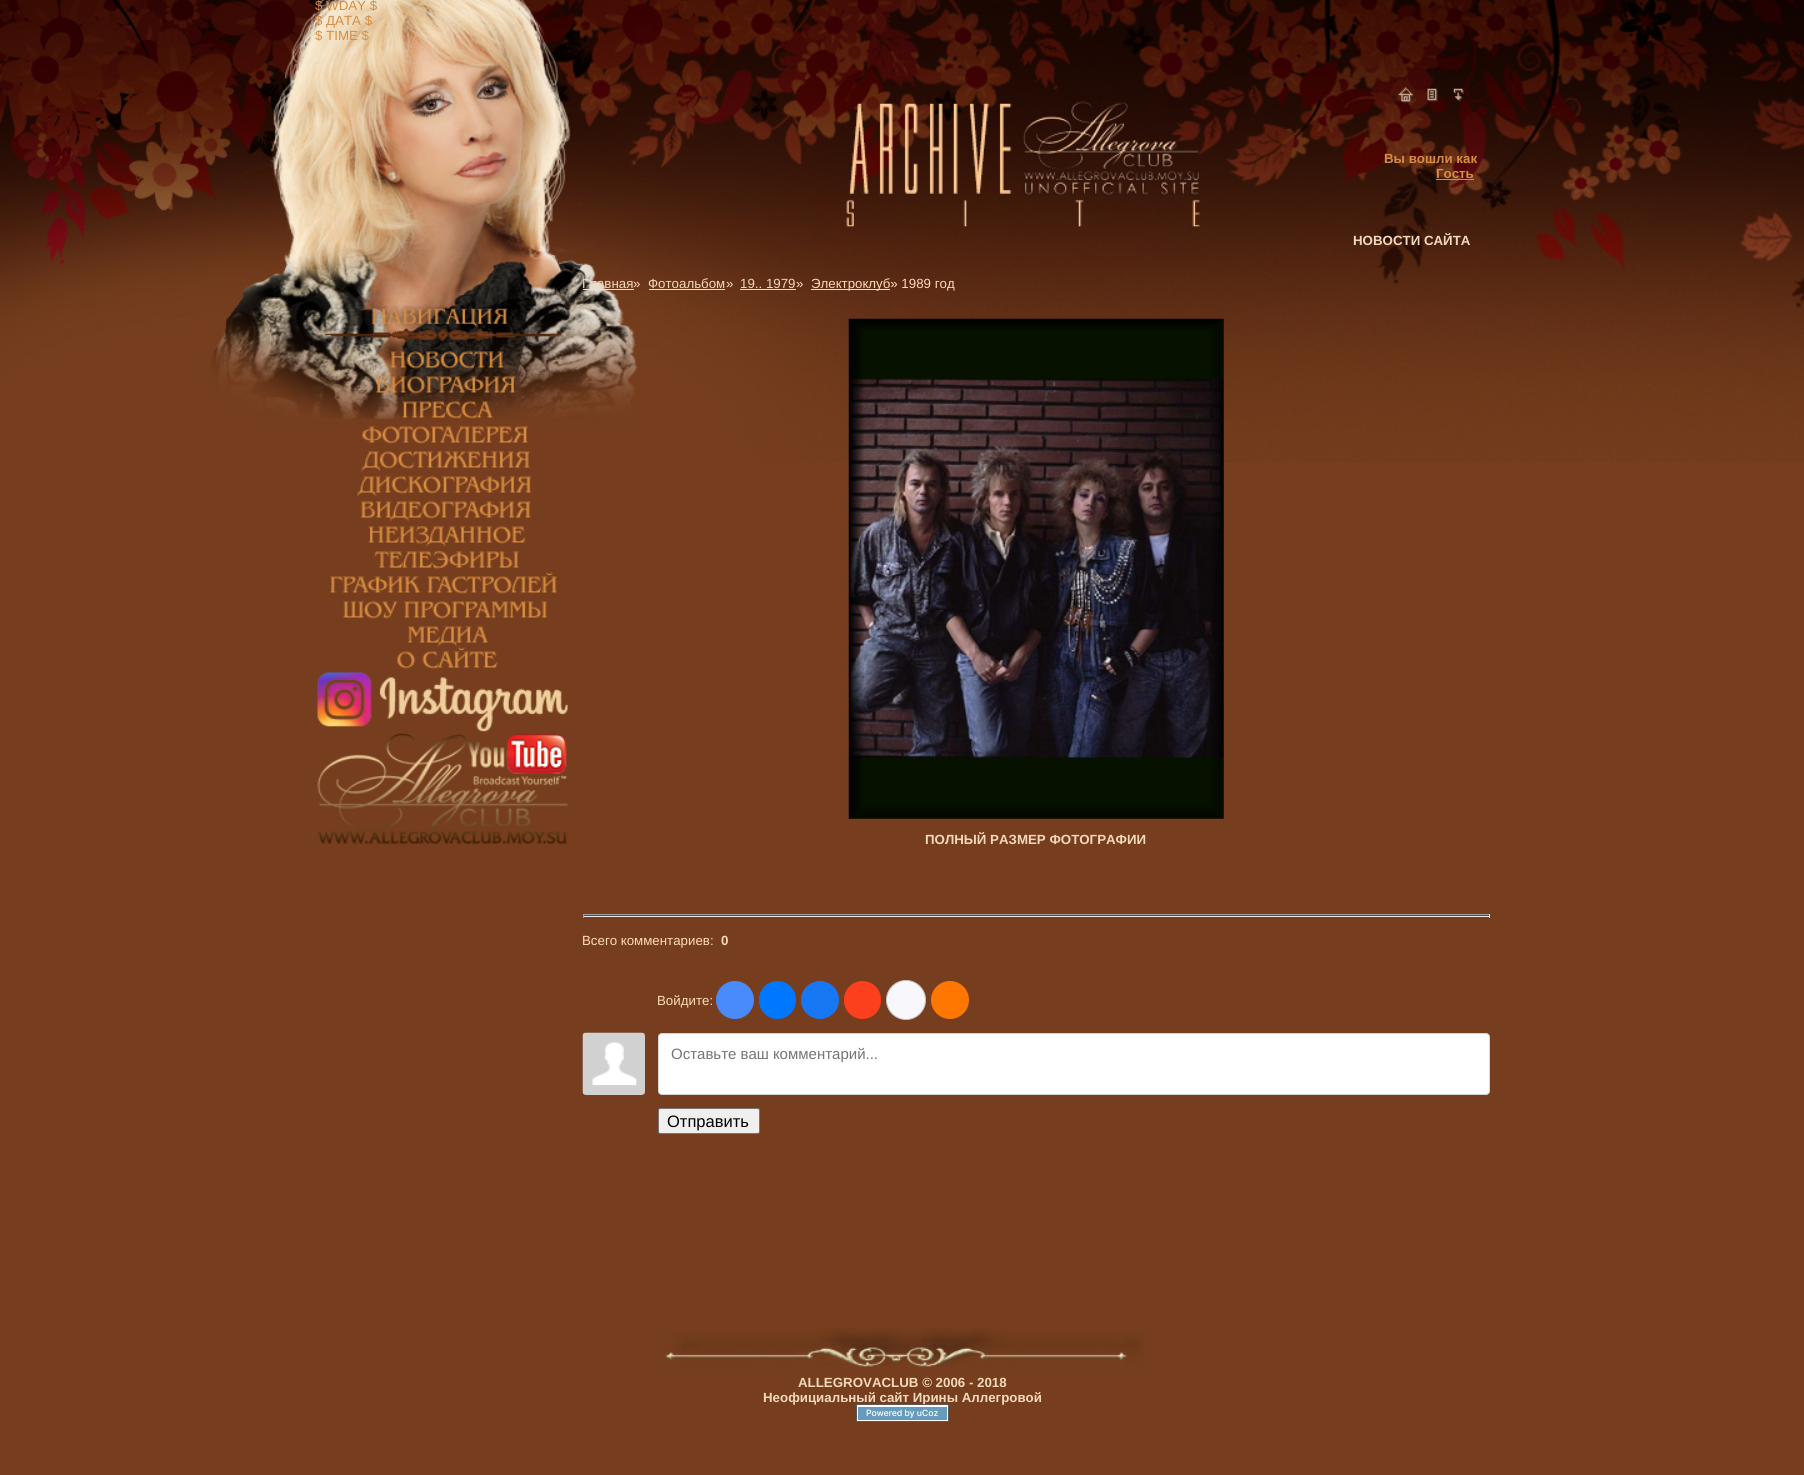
import math
import cairo

surface = cairo.ImageSurface(cairo.Format.RGB24, 1804, 1475)
ctx = cairo.Context(surface)
options = cairo.FontOptions()
options.set_hint_metrics(cairo.HintMetrics.OFF)
options.set_hint_style(cairo.HintStyle.NONE)
ctx.set_font_options(options)
ctx.set_miter_limit(4)


def ink(r, g, b):
    ctx.set_source_rgb(r / 255, g / 255, b / 255)


def write(x, y, s, family, size, color, bold=False, italic=False):
    ctx.select_font_face(family, cairo.FontSlant.ITALIC if italic else cairo.FontSlant.NORMAL, cairo.FontWeight.BOLD if bold else cairo.FontWeight.NORMAL)
    ctx.set_font_size(size)
    ink(*color)
    ctx.move_to(x, y)
    ctx.show_text(s)


def block(x, y, w, h, *color):
    ink(*color)
    ctx.rectangle(x, y, w, h)
    ctx.fill()


def round_path(x, y, w, h, r):
    ctx.new_sub_path()
    for i, (u, v) in enumerate([(x + w - r, y + h - r), (x + r, y + h - r), (x + r, y + r), (x + w - r, y + r)]):
        ctx.arc(u, v, r, i * math.pi / 2, (i + 1) * math.pi / 2)
    ctx.close_path()


def paste(path, x, y, w, h):
    ctx.save()
    ctx.set_source_surface(cairo.ImageSurface.create_from_png(path), x, y)
    ctx.rectangle(x, y, w, h)
    ctx.fill()
    ctx.restore()


s1 = dict(family="Liberation Sans", size=13.3, color=(214, 140, 65))
s2 = dict(family="Liberation Sans", size=13.3, color=(214, 140, 65), bold=True)
s3 = dict(family="Liberation Sans", size=13.3, color=(243, 217, 187), bold=True)
s4 = dict(family="Liberation Sans", size=13.3, color=(243, 217, 187))
s5 = dict(family="Liberation Sans", size=13.3, color=(255, 218, 185))
s6 = dict(family="Liberation Sans", size=13.3, color=(255, 218, 185), bold=True)
s7 = dict(family="Liberation Sans", size=15, color=(117, 117, 117))
s8 = dict(family="Liberation Sans", size=16.5, color=(0, 0, 0))

ink(118, 62, 30)
ctx.paint()
paste("pic1.png", 0, 0, 1804, 462)
write(315, 10, "$ WDAY $", **s1)
write(315, 25, "$ ДАТА $", **s1)
write(315, 40, "$ TIME $", **s1)
paste("pic2.png", 1398, 87, 16, 16)
paste("pic3.png", 1427, 88, 11, 14)
paste("pic4.png", 1453, 88, 11, 14)
write(1384, 163, "Вы вошли как", **s2)
write(1436, 178, "Гость", **s2)
block(1436, 179, 38, 1, 214, 140, 65)
write(1353, 245, "НОВОСТИ САЙТА", **s3)
paste("pic5.png", 324, 305, 238, 37)
paste("pic6.png", 390, 351, 114, 18)
paste("pic7.png", 375, 376, 141, 18)
paste("pic8.png", 402, 401, 91, 18)
paste("pic9.png", 362, 426, 166, 18)
paste("pic10.png", 361, 451, 169, 21)
paste("pic11.png", 357, 476, 175, 21)
paste("pic12.png", 360, 501, 171, 21)
paste("pic13.png", 368, 526, 158, 21)
paste("pic14.png", 374, 551, 145, 18)
paste("pic15.png", 330, 572, 227, 22)
paste("pic16.png", 343, 601, 205, 18)
paste("pic17.png", 407, 626, 81, 21)
paste("pic18.png", 397, 647, 101, 22)
paste("pic19.png", 317, 672, 251, 60)
ctx.new_path()
ctx.move_to(316, 732)
ctx.line_to(569, 732)
ink(120, 63, 31)
ctx.set_line_width(1.2)
ctx.set_dash([1.25, 1.25])
ctx.stroke()
paste("pic20.png", 317, 733, 251, 111)
write(582, 288, "Главная", **s4)
block(583, 289, 51, 1, 255, 218, 185)
write(633, 288, "»", **s5)
write(648, 288, "Фотоальбом", **s4)
block(649, 289, 76, 1, 255, 218, 185)
write(726, 288, "»", **s5)
write(740, 288, "19.. 1979", **s4)
block(740, 289, 56, 1, 255, 218, 185)
write(796, 288, "»", **s5)
block(811, 289, 79, 1, 255, 218, 185)
write(811, 288, "Электроклуб» 1989 год", **s5)
paste("pic21.png", 848, 318, 376, 501)
write(925, 844, "ПОЛНЫЙ РАЗМЕР ФОТОГРАФИИ", **s3)
block(583, 914, 907, 1, 159, 159, 159)
block(1489, 914, 1, 4, 238, 238, 238)
block(583, 916, 907, 1, 238, 238, 238)
block(583, 914, 1, 4, 159, 159, 159)
write(582, 945, "Всего комментариев:", **s5)
write(721, 945, "0", **s6)
write(657, 1005, "Войдите:", **s5)
ink(73, 139, 250)
ctx.new_path()
ctx.arc(735, 1000, 19, 0, 2 * math.pi)
ctx.fill()
ink(0, 119, 255)
round_path(759, 981, 37, 38, 18.5)
ctx.fill()
ink(24, 119, 242)
ctx.arc(820, 1000, 19, 0, 2 * math.pi)
ctx.fill()
ink(252, 63, 29)
round_path(844, 981, 37, 38, 18.5)
ctx.fill()
ink(248, 248, 252)
ctx.arc(906, 1000, 19.5, 0, 2 * math.pi)
ctx.fill_preserve()
ink(196, 196, 196)
ctx.set_line_width(1)
ctx.set_dash([])
ctx.stroke()
ink(255, 119, 0)
ctx.arc(950, 1000, 19, 0, 2 * math.pi)
ctx.fill()
paste("pic22.png", 582, 1032, 63, 63)
ink(255, 255, 255)
round_path(658.5, 1033.5, 831, 61, 3.5)
ctx.fill_preserve()
ink(214, 214, 214)
ctx.stroke()
write(671, 1059, "Оставьте ваш комментарий...", **s7)
ink(239, 239, 239)
round_path(658.5, 1108.5, 101, 25, 2)
ctx.fill_preserve()
ink(118, 118, 118)
ctx.stroke()
write(667, 1127, "Отправить", **s8)
paste("pic23.png", 665, 1328, 479, 39)
write(798, 1387, "ALLEGROVACLUB © 2006 - 2018", **s3)
write(763, 1402, "Неофициальный сайт Ирины Аллегровой", **s3)
paste("pic24.png", 856, 1404, 93, 18)
surface.write_to_png("screenshot.png")
